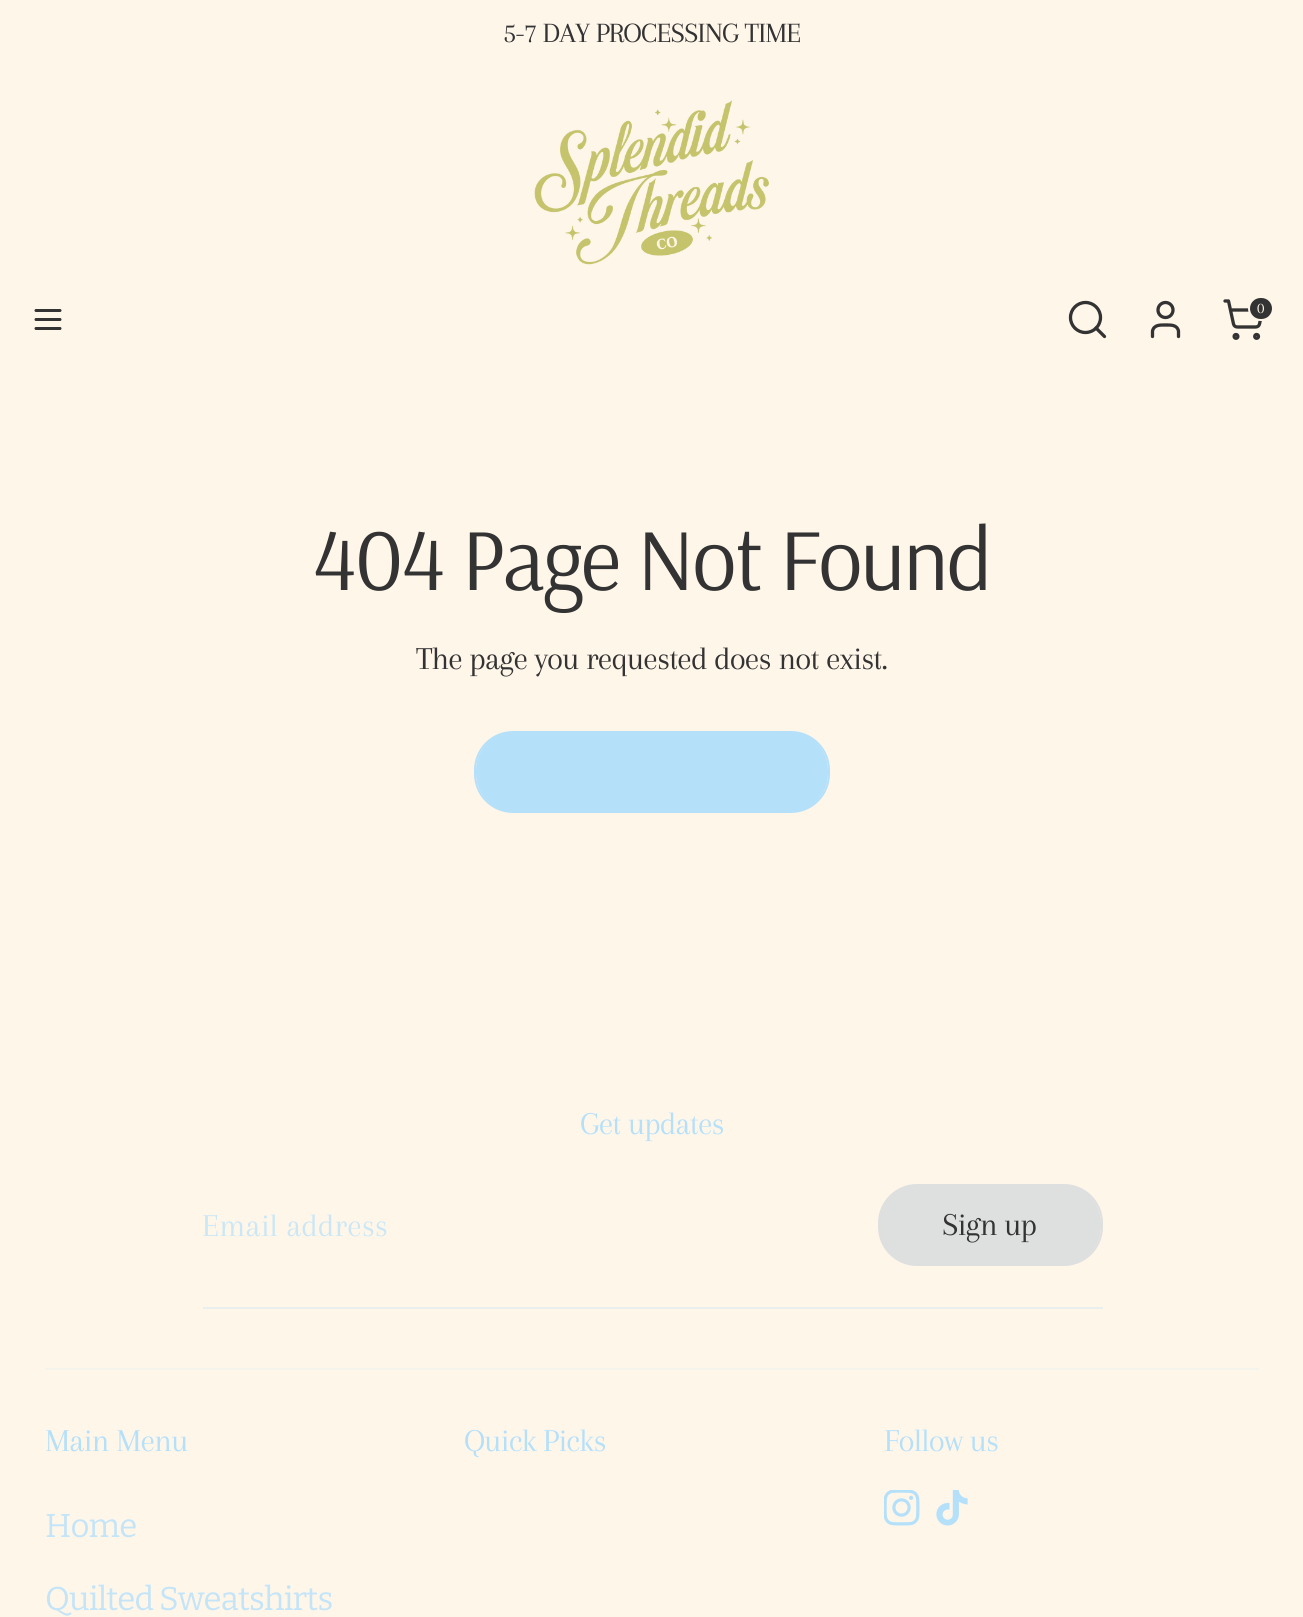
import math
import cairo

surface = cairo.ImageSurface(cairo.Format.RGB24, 1303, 1617)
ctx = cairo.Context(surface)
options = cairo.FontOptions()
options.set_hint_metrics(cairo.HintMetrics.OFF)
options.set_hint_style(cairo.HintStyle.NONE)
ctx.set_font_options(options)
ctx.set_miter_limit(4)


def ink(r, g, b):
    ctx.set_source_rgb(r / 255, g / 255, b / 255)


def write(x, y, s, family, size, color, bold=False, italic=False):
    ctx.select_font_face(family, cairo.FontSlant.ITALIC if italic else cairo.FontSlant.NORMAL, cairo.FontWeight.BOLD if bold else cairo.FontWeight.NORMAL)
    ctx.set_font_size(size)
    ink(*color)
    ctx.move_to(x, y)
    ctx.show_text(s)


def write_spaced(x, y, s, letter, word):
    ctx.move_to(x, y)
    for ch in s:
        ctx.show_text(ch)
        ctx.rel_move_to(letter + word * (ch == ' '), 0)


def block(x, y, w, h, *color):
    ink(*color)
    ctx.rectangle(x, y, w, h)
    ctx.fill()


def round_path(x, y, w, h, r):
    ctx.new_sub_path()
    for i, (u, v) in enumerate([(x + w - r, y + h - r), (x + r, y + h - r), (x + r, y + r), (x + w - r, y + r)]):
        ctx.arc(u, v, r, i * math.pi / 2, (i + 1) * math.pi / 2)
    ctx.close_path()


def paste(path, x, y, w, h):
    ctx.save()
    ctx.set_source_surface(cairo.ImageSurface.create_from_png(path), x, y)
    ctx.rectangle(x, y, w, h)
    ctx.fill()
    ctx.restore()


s1 = dict(family="Arapey", size=16, color=(255, 246, 234))
s2 = dict(family="Arapey", size=33, color=(203, 231, 245))

ink(255, 246, 234)
ctx.paint()
ctx.select_font_face("Arapey")
ctx.set_font_size(28.9)
ink(51, 51, 51)
write_spaced(503, 42, "5-7 DAY PROCESSING TIME", -0.85, 0)
paste("pic1.png", 534, 100, 235, 165)
ctx.new_path()
ctx.move_to(36, 319.5)
ctx.line_to(60, 319.5)
ctx.move_to(36, 310.5)
ctx.line_to(60, 310.5)
ctx.move_to(36, 328.5)
ctx.line_to(60, 328.5)
ctx.set_line_width(3)
ctx.set_line_cap(cairo.LineCap.ROUND)
ctx.set_line_join(cairo.LineJoin.ROUND)
ctx.stroke()
ctx.arc(1085.5, 317.5, 15, 0, 2 * math.pi)
ctx.set_line_width(3.3)
ctx.set_line_cap(cairo.LineCap.BUTT)
ctx.set_line_join(cairo.LineJoin.MITER)
ctx.stroke()
ctx.new_path()
ctx.move_to(1104.5, 336.5)
ctx.line_to(1096, 328)
ctx.set_line_cap(cairo.LineCap.ROUND)
ctx.set_line_join(cairo.LineJoin.ROUND)
ctx.stroke()
ctx.new_path()
ctx.move_to(1178.5, 336.5)
ctx.line_to(1178.5, 331)
ctx.curve_to(1177, 324.5, 1170.5, 325, 1165.5, 325)
ctx.curve_to(1160.5, 325, 1154, 324.5, 1152.5, 331)
ctx.line_to(1152.5, 336.5)
ctx.stroke()
ctx.arc(1165.5, 310, 7.5, 0, 2 * math.pi)
ctx.set_line_cap(cairo.LineCap.BUTT)
ctx.set_line_join(cairo.LineJoin.MITER)
ctx.stroke()
ctx.arc(1236, 336.4, 1.9, 0, 2 * math.pi)
ctx.stroke()
ctx.arc(1256.6, 336.4, 1.9, 0, 2 * math.pi)
ctx.stroke()
ctx.new_path()
ctx.move_to(1225, 301)
ctx.line_to(1228.5, 301)
ctx.line_to(1233.5, 324)
ctx.curve_to(1234, 326, 1235.5, 327, 1237.5, 327)
ctx.line_to(1255.5, 327)
ctx.curve_to(1257.5, 327, 1259, 326, 1259.5, 324)
ctx.line_to(1262.5, 310)
ctx.line_to(1230.5, 310)
ctx.set_line_cap(cairo.LineCap.ROUND)
ctx.set_line_join(cairo.LineJoin.ROUND)
ctx.stroke()
round_path(1249, 297, 24, 23, 11.5)
ctx.fill_preserve()
ink(255, 246, 234)
ctx.set_line_width(2)
ctx.set_line_cap(cairo.LineCap.BUTT)
ctx.set_line_join(cairo.LineJoin.MITER)
ctx.stroke()
write(1257, 313, "0", **s1)
ctx.select_font_face("Arsenal")
ctx.set_font_size(88.5)
ink(51, 51, 51)
write_spaced(313, 590, "404 Page Not Found", -2.25, 0)
ctx.select_font_face("Arapey")
ctx.set_font_size(33)
write_spaced(416, 669, "The page you requested does not exist.", -0.85, 0)
round_path(475, 732, 354, 80, 38)
ink(181, 224, 250)
ctx.stroke()
round_path(476, 732, 352, 80, 38)
ctx.fill()
write_spaced(580, 1134, "Get updates", -0.85, 0)
block(203, 1307, 900, 2, 233, 239, 239)
write(202, 1236, "Email address", **s2)
round_path(879, 1185, 223, 80, 38)
ink(222, 223, 223)
ctx.stroke()
round_path(879, 1185, 222, 80, 38)
ctx.fill()
ink(51, 51, 51)
write_spaced(942, 1235, "Sign up", -0.85, 0)
block(45, 1368, 1214, 2, 244, 243, 236)
ink(181, 224, 250)
write_spaced(45, 1451, "Main Menu", -0.85, 0)
ctx.select_font_face("Bitter")
ink(196, 228, 247)
write_spaced(45, 1537, "Home", -0.85, 0)
write_spaced(45, 1610, "Quilted Sweatshirts", -0.85, 0)
ctx.select_font_face("Arapey")
ink(181, 224, 250)
write_spaced(464, 1451, "Quick Picks", -0.85, 0)
write_spaced(884, 1451, "Follow us", -0.85, 0)
paste("pic2.png", 884, 1490, 36, 36)
paste("pic3.png", 936, 1490, 32, 36)
surface.write_to_png("screenshot.png")
